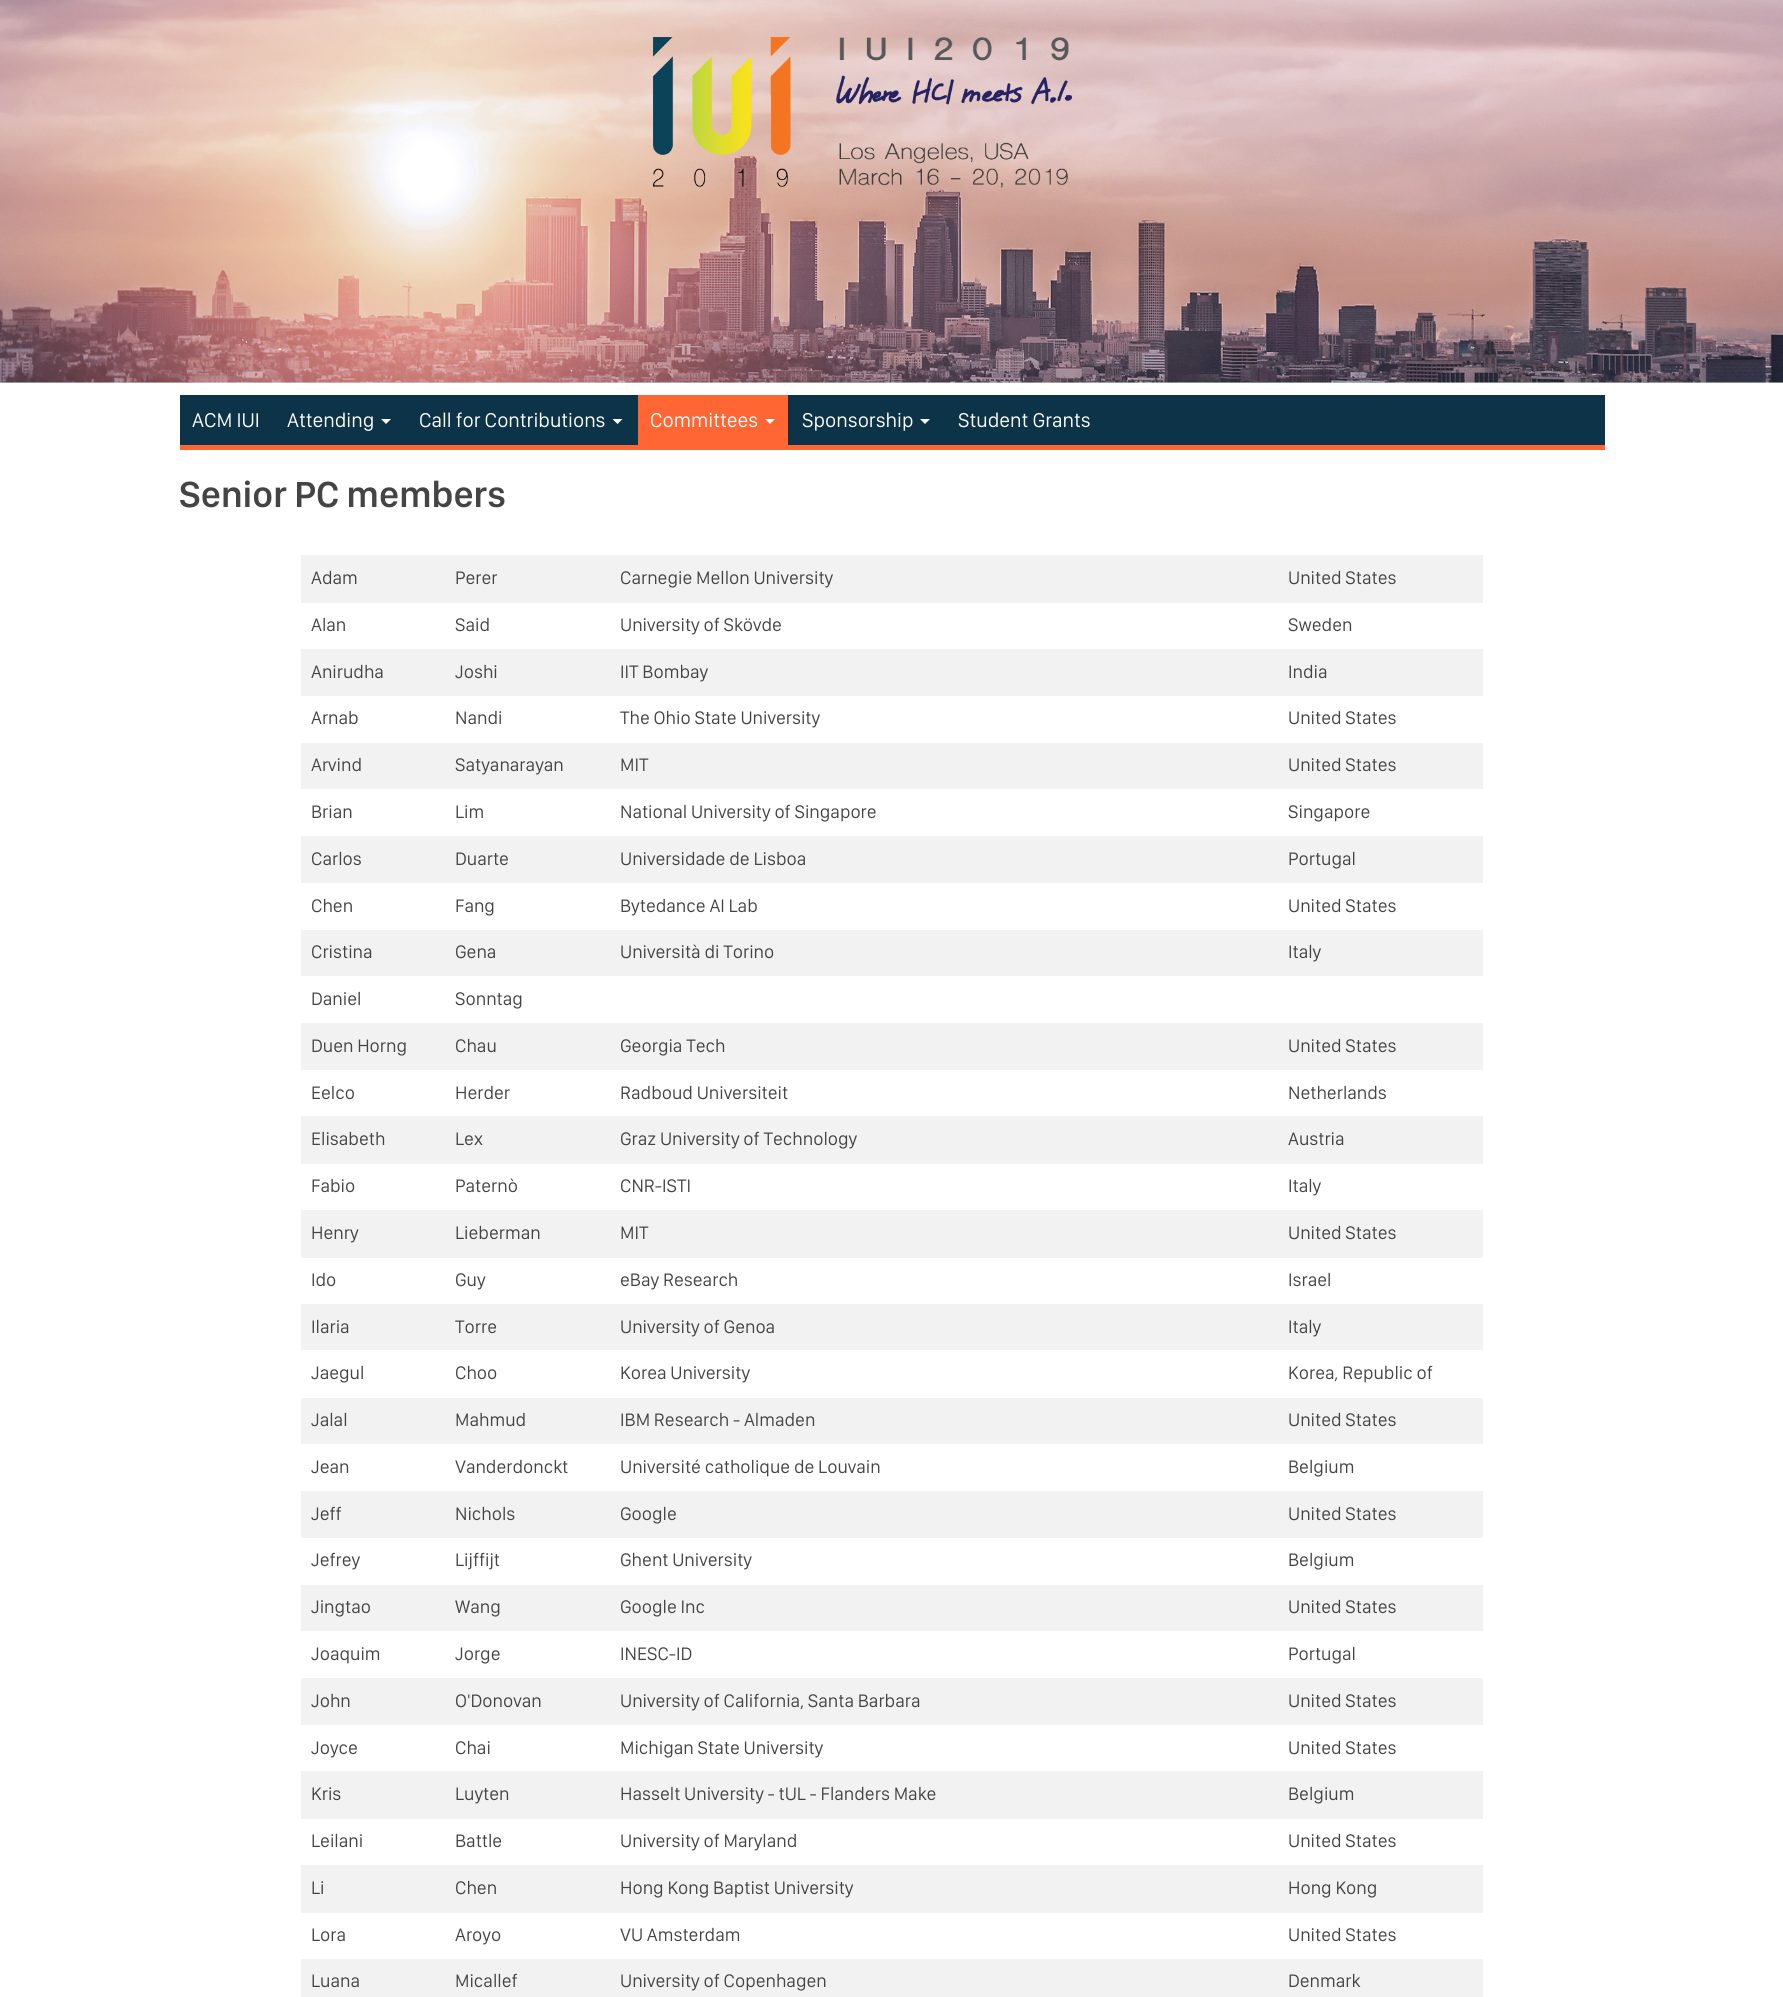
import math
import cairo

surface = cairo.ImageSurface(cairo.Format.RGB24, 1783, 1997)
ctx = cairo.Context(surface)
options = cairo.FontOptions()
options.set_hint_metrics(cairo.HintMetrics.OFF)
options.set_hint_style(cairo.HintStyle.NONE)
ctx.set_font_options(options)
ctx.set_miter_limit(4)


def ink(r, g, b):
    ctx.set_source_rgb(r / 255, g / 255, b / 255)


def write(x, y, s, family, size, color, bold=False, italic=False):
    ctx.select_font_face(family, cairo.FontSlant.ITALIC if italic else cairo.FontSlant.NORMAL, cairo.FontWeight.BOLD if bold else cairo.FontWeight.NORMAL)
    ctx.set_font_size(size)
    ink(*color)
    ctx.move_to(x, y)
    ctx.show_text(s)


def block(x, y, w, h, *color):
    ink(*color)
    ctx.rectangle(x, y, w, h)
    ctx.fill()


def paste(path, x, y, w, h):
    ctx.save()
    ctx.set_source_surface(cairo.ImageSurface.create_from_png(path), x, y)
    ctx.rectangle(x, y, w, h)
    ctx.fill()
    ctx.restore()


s1 = dict(family="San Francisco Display", size=20.6, color=(255, 255, 255))
s2 = dict(family="San Francisco Display SemiBold", size=37.5, color=(68, 68, 68))
s3 = dict(family="San Francisco Display", size=18.75, color=(68, 68, 68))

ink(255, 255, 255)
ctx.paint()
block(0, 382, 1783, 1, 210, 232, 226)
paste("pic1.png", 0, 0, 1783, 383)
block(180, 395, 1425, 50, 12, 51, 71)
write(192, 427, "ACM IUI", **s1)
write(287, 427, "Attending", **s1)
ctx.new_path()
ctx.move_to(381, 419)
ctx.line_to(391, 419)
ctx.line_to(386, 424)
ctx.close_path()
ctx.fill()
write(419, 427, "Call for Contributions", **s1)
ctx.new_path()
ctx.move_to(612.5, 419)
ctx.line_to(622.5, 419)
ctx.line_to(617.5, 424)
ctx.close_path()
ctx.fill()
block(638, 395, 150, 50, 255, 102, 51)
write(650, 427, "Committees", **s1)
ctx.new_path()
ctx.move_to(765, 419)
ctx.line_to(775, 419)
ctx.line_to(770, 424)
ctx.close_path()
ctx.fill()
write(802, 427, "Sponsorship", **s1)
ctx.new_path()
ctx.move_to(920, 419)
ctx.line_to(930, 419)
ctx.line_to(925, 424)
ctx.close_path()
ctx.fill()
write(958, 427, "Student Grants", **s1)
block(180, 445, 1425, 5, 255, 102, 51)
write(179, 507, "Senior PC members", **s2)
block(301, 555, 1182, 48, 242, 242, 242)
write(311, 584, "Adam", **s3)
write(455, 584, "Perer", **s3)
write(620, 584, "Carnegie Mellon University", **s3)
write(1288, 584, "United States", **s3)
write(311, 631, "Alan", **s3)
write(455, 631, "Said", **s3)
write(620, 631, "University of Skövde", **s3)
write(1288, 631, "Sweden", **s3)
block(301, 649, 1182, 47, 242, 242, 242)
write(311, 678, "Anirudha", **s3)
write(455, 678, "Joshi", **s3)
write(620, 678, "IIT Bombay", **s3)
write(1288, 678, "India", **s3)
write(311, 724, "Arnab", **s3)
write(455, 724, "Nandi", **s3)
write(620, 724, "The Ohio State University", **s3)
write(1288, 724, "United States", **s3)
block(301, 743, 1182, 46, 242, 242, 242)
write(311, 771, "Arvind", **s3)
write(455, 771, "Satyanarayan", **s3)
write(620, 771, "MIT", **s3)
write(1288, 771, "United States", **s3)
write(311, 818, "Brian", **s3)
write(455, 818, "Lim", **s3)
write(620, 818, "National University of Singapore", **s3)
write(1288, 818, "Singapore", **s3)
block(301, 836, 1182, 47, 242, 242, 242)
write(311, 865, "Carlos", **s3)
write(455, 865, "Duarte", **s3)
write(620, 865, "Universidade de Lisboa", **s3)
write(1288, 865, "Portugal", **s3)
write(311, 912, "Chen", **s3)
write(455, 912, "Fang", **s3)
write(620, 912, "Bytedance AI Lab", **s3)
write(1288, 912, "United States", **s3)
block(301, 930, 1182, 46, 242, 242, 242)
write(311, 958, "Cristina", **s3)
write(455, 958, "Gena", **s3)
write(620, 958, "Università di Torino", **s3)
write(1288, 958, "Italy", **s3)
write(311, 1005, "Daniel", **s3)
write(455, 1005, "Sonntag", **s3)
block(301, 1023, 1182, 47, 242, 242, 242)
write(311, 1052, "Duen Horng", **s3)
write(455, 1052, "Chau", **s3)
write(620, 1052, "Georgia Tech", **s3)
write(1288, 1052, "United States", **s3)
write(311, 1099, "Eelco", **s3)
write(455, 1099, "Herder", **s3)
write(620, 1099, "Radboud Universiteit", **s3)
write(1288, 1099, "Netherlands", **s3)
block(301, 1116, 1182, 48, 242, 242, 242)
write(311, 1145, "Elisabeth", **s3)
write(455, 1145, "Lex", **s3)
write(620, 1145, "Graz University of Technology", **s3)
write(1288, 1145, "Austria", **s3)
write(311, 1192, "Fabio", **s3)
write(455, 1192, "Paternò", **s3)
write(620, 1192, "CNR-ISTI", **s3)
write(1288, 1192, "Italy", **s3)
block(301, 1210, 1182, 48, 242, 242, 242)
write(311, 1239, "Henry", **s3)
write(455, 1239, "Lieberman", **s3)
write(620, 1239, "MIT", **s3)
write(1288, 1239, "United States", **s3)
write(311, 1286, "Ido", **s3)
write(455, 1286, "Guy", **s3)
write(620, 1286, "eBay Research", **s3)
write(1288, 1286, "Israel", **s3)
block(301, 1304, 1182, 46, 242, 242, 242)
write(311, 1333, "Ilaria", **s3)
write(455, 1333, "Torre", **s3)
write(620, 1333, "University of Genoa", **s3)
write(1288, 1333, "Italy", **s3)
write(311, 1379, "Jaegul", **s3)
write(455, 1379, "Choo", **s3)
write(620, 1379, "Korea University", **s3)
write(1288, 1379, "Korea, Republic of", **s3)
block(301, 1398, 1182, 46, 242, 242, 242)
write(311, 1426, "Jalal", **s3)
write(455, 1426, "Mahmud", **s3)
write(620, 1426, "IBM Research - Almaden", **s3)
write(1288, 1426, "United States", **s3)
write(311, 1473, "Jean", **s3)
write(455, 1473, "Vanderdonckt", **s3)
write(620, 1473, "Université catholique de Louvain", **s3)
write(1288, 1473, "Belgium", **s3)
block(301, 1491, 1182, 47, 242, 242, 242)
write(311, 1520, "Jeff", **s3)
write(455, 1520, "Nichols", **s3)
write(620, 1520, "Google", **s3)
write(1288, 1520, "United States", **s3)
write(311, 1566, "Jefrey", **s3)
write(455, 1566, "Lijffijt", **s3)
write(620, 1566, "Ghent University", **s3)
write(1288, 1566, "Belgium", **s3)
block(301, 1585, 1182, 46, 242, 242, 242)
write(311, 1613, "Jingtao", **s3)
write(455, 1613, "Wang", **s3)
write(620, 1613, "Google Inc", **s3)
write(1288, 1613, "United States", **s3)
write(311, 1660, "Joaquim", **s3)
write(455, 1660, "Jorge", **s3)
write(620, 1660, "INESC-ID", **s3)
write(1288, 1660, "Portugal", **s3)
block(301, 1678, 1182, 47, 242, 242, 242)
write(311, 1707, "John", **s3)
write(455, 1707, "O'Donovan", **s3)
write(620, 1707, "University of California, Santa Barbara", **s3)
write(1288, 1707, "United States", **s3)
write(311, 1754, "Joyce", **s3)
write(455, 1754, "Chai", **s3)
write(620, 1754, "Michigan State University", **s3)
write(1288, 1754, "United States", **s3)
block(301, 1771, 1182, 48, 242, 242, 242)
write(311, 1800, "Kris", **s3)
write(455, 1800, "Luyten", **s3)
write(620, 1800, "Hasselt University - tUL - Flanders Make", **s3)
write(1288, 1800, "Belgium", **s3)
write(311, 1847, "Leilani", **s3)
write(455, 1847, "Battle", **s3)
write(620, 1847, "University of Maryland", **s3)
write(1288, 1847, "United States", **s3)
block(301, 1865, 1182, 48, 242, 242, 242)
write(311, 1894, "Li", **s3)
write(455, 1894, "Chen", **s3)
write(620, 1894, "Hong Kong Baptist University", **s3)
write(1288, 1894, "Hong Kong", **s3)
write(311, 1941, "Lora", **s3)
write(455, 1941, "Aroyo", **s3)
write(620, 1941, "VU Amsterdam", **s3)
write(1288, 1941, "United States", **s3)
block(301, 1959, 1182, 38, 242, 242, 242)
write(311, 1987, "Luana", **s3)
write(455, 1987, "Micallef", **s3)
write(620, 1987, "University of Copenhagen", **s3)
write(1288, 1987, "Denmark", **s3)
surface.write_to_png("screenshot.png")
